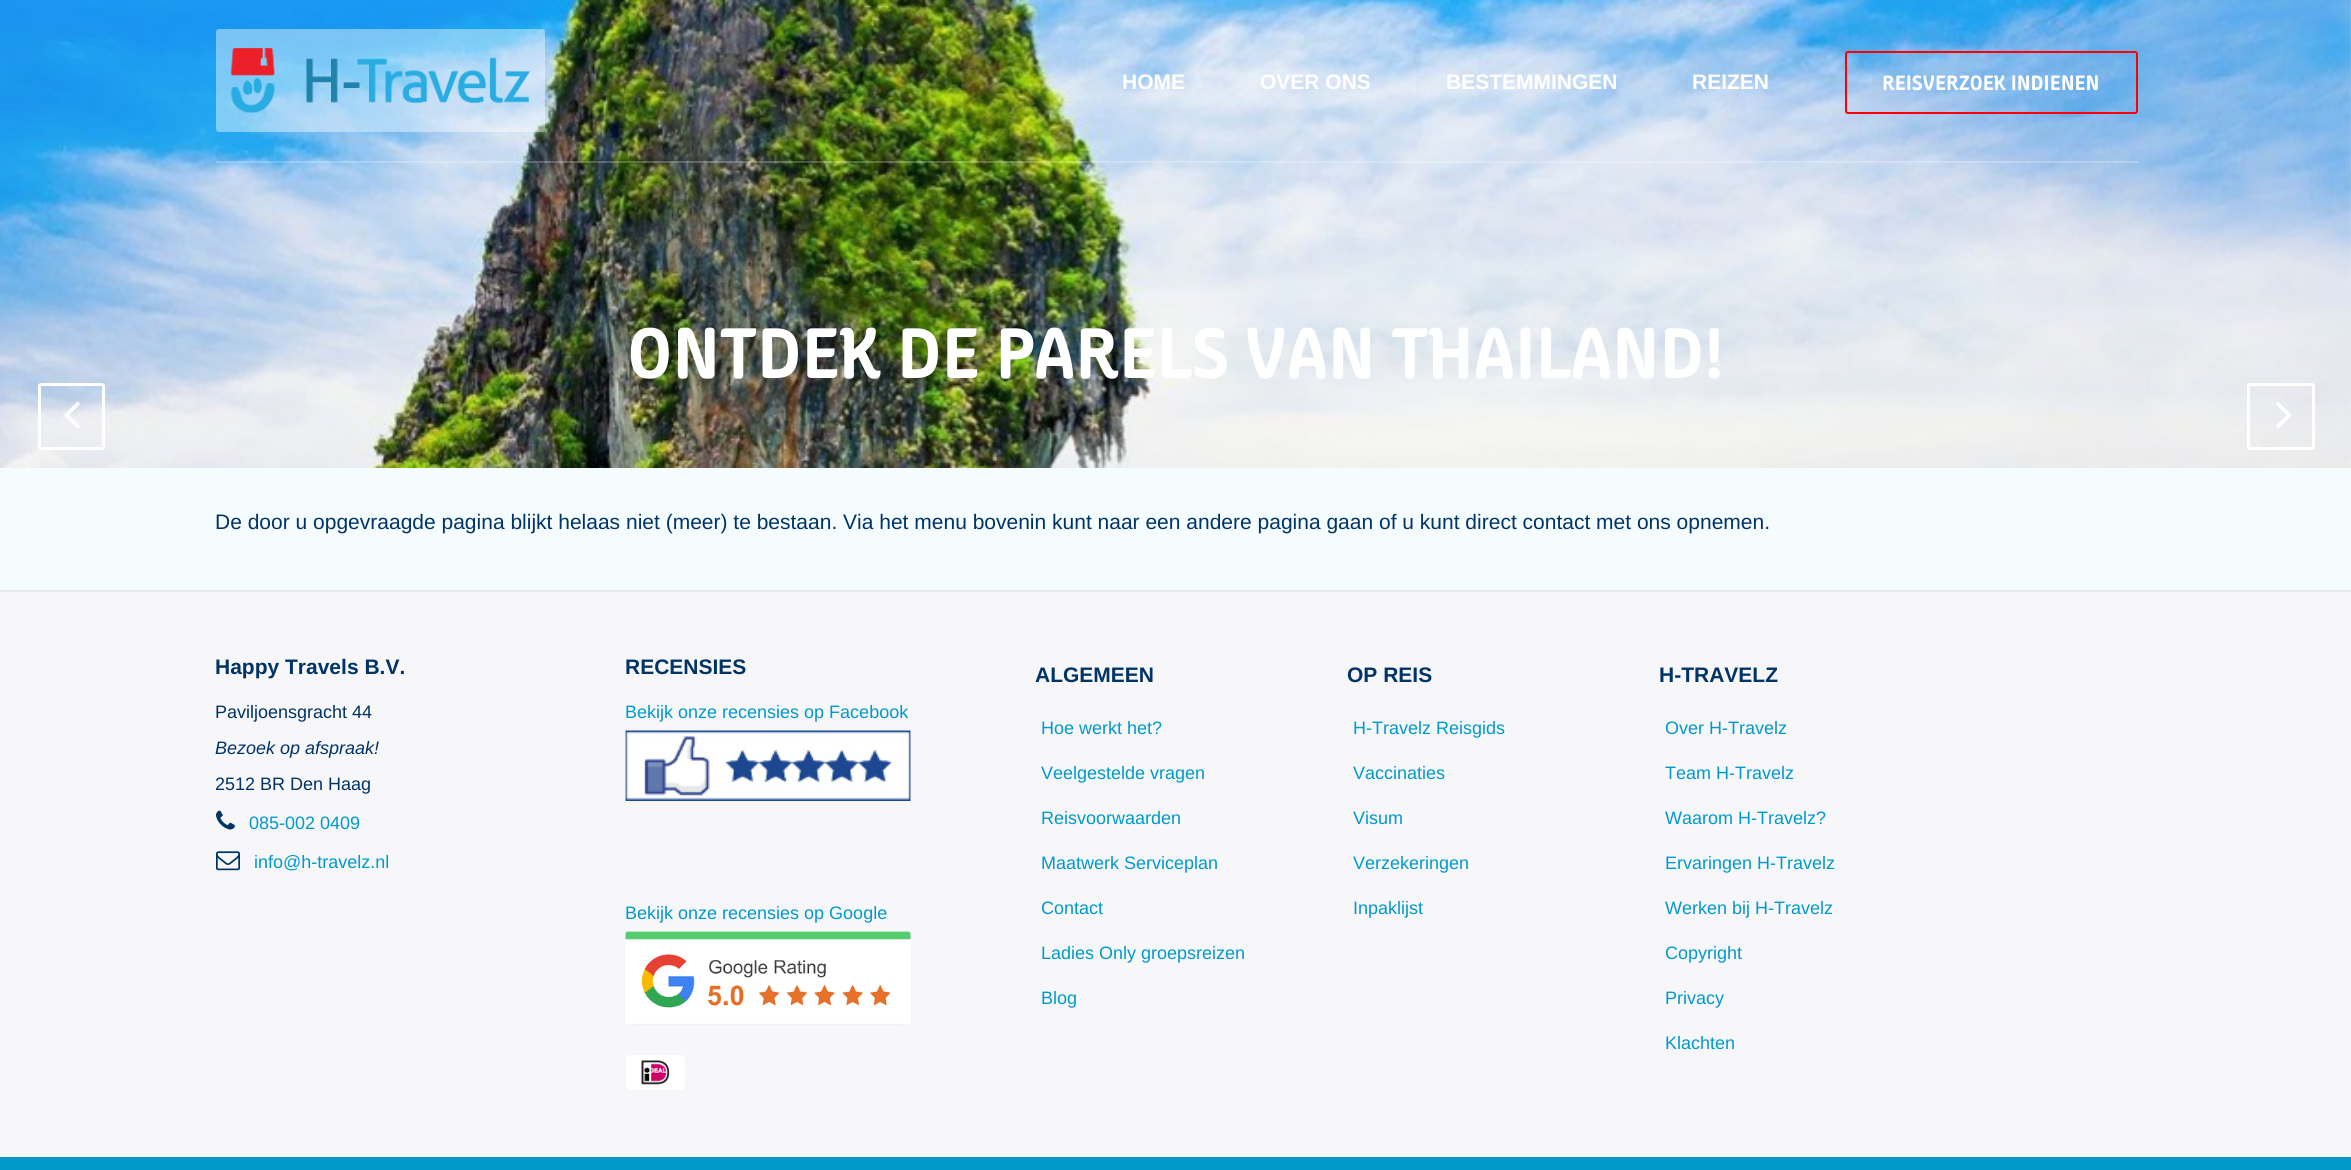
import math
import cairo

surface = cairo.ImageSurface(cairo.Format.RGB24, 2351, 1170)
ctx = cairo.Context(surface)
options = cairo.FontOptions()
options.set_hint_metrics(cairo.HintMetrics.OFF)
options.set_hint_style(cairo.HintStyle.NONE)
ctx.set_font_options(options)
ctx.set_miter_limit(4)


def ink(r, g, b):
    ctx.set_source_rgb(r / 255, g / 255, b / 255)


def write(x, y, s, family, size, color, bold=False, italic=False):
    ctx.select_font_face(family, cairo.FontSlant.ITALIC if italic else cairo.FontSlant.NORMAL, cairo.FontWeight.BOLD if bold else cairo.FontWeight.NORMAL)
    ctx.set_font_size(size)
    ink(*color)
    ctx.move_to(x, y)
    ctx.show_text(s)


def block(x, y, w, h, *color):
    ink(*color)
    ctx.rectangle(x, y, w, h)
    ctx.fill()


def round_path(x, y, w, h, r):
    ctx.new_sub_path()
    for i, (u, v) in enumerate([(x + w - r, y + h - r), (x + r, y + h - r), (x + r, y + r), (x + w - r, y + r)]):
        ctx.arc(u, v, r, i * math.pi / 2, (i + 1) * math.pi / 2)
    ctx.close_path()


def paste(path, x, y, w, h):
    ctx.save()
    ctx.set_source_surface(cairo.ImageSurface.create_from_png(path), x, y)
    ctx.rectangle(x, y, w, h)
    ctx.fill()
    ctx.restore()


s1 = dict(family="Liberation Sans", size=21, color=(255, 255, 255), bold=True)
s2 = dict(family="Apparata", size=21, color=(255, 255, 255), bold=True)
s3 = dict(family="Apparata", size=72, color=(255, 255, 255), bold=True)
s4 = dict(family="Liberation Sans", size=21, color=(0, 51, 102))
s5 = dict(family="Liberation Sans", size=21, color=(0, 51, 102), bold=True)
s6 = dict(family="Liberation Sans", size=18, color=(0, 51, 102))
s7 = dict(family="Liberation Sans", size=18, color=(0, 51, 102), italic=True)
s8 = dict(family="Liberation Sans", size=18, color=(0, 153, 204))

ink(255, 255, 255)
ctx.paint()
block(0, 401, 2351, 189, 245, 252, 254)
paste("pic2.png", 0, 0, 2351, 468)
ctx.set_source_rgba(1, 1, 1, 0.42)
round_path(216, 29, 329, 103, 3)
ctx.fill()
paste("pic1.png", 230, 48, 300, 66)
write(1122, 89, "HOME", **s1)
write(1260, 89, "OVER ONS", **s1)
write(1446, 89, "BESTEMMINGEN", **s1)
write(1692, 89, "REIZEN", **s1)
round_path(1846, 52, 291, 61, 2)
ink(255, 0, 0)
ctx.stroke()
write(1882, 90, "REISVERZOEK INDIENEN", **s2)
ctx.set_source_rgba(1, 1, 1, 0.23)
ctx.rectangle(216, 161, 1922, 2)
ctx.fill()
write(627, 378, "ONTDEK DE PARELS VAN THAILAND!", **s3)
round_path(39.5, 384.5, 64, 64, 1.5)
ctx.set_line_width(3)
ctx.stroke()
paste("pic3.png", 64, 401, 16, 28)
round_path(2248.5, 384.5, 65, 64, 1.5)
ctx.stroke()
paste("pic4.png", 2276, 402, 16, 27)
write(215, 529, "De door u opgevraagde pagina blijkt helaas niet (meer) te bestaan. Via het menu bovenin kunt naar een andere pagina gaan of u kunt direct contact met ons opnemen.", **s4)
block(0, 592, 2351, 565, 247, 247, 249)
block(0, 590, 2351, 2, 232, 232, 232)
write(215, 674, "Happy Travels B.V.", **s5)
write(215, 718, "Paviljoensgracht 44", **s6)
write(215, 754, "Bezoek op afspraak!", **s7)
write(215, 790, "2512 BR Den Haag", **s6)
paste("pic5.png", 216, 810, 19, 20)
write(249, 829, "085-002 0409", **s8)
paste("pic6.png", 216, 851, 24, 20)
write(254, 868, "info@h-travelz.nl", **s8)
write(625, 674, "RECENSIES", **s5)
write(625, 718, "Bekijk onze recensies op Facebook", **s8)
paste("pic7.png", 625, 730, 286, 71)
write(625, 919, "Bekijk onze recensies op Google", **s8)
paste("pic8.png", 625, 931, 286, 94)
paste("pic9.png", 626, 1055, 59, 35)
write(1035, 682, "ALGEMEEN", **s5)
write(1041, 734, "Hoe werkt het?", **s8)
write(1041, 779, "Veelgestelde vragen", **s8)
write(1041, 824, "Reisvoorwaarden", **s8)
write(1041, 869, "Maatwerk Serviceplan", **s8)
write(1041, 914, "Contact", **s8)
write(1041, 959, "Ladies Only groepsreizen", **s8)
write(1041, 1004, "Blog", **s8)
write(1347, 682, "OP REIS", **s5)
write(1353, 734, "H-Travelz Reisgids", **s8)
write(1353, 779, "Vaccinaties", **s8)
write(1353, 824, "Visum", **s8)
write(1353, 869, "Verzekeringen", **s8)
write(1353, 914, "Inpaklijst", **s8)
write(1659, 682, "H-TRAVELZ", **s5)
write(1665, 734, "Over H-Travelz", **s8)
write(1665, 779, "Team H-Travelz", **s8)
write(1665, 824, "Waarom H-Travelz?", **s8)
write(1665, 869, "Ervaringen H-Travelz", **s8)
write(1665, 914, "Werken bij H-Travelz", **s8)
write(1665, 959, "Copyright", **s8)
write(1665, 1004, "Privacy", **s8)
write(1665, 1049, "Klachten", **s8)
block(0, 1157, 2351, 13, 0, 153, 204)
surface.write_to_png("screenshot.png")
